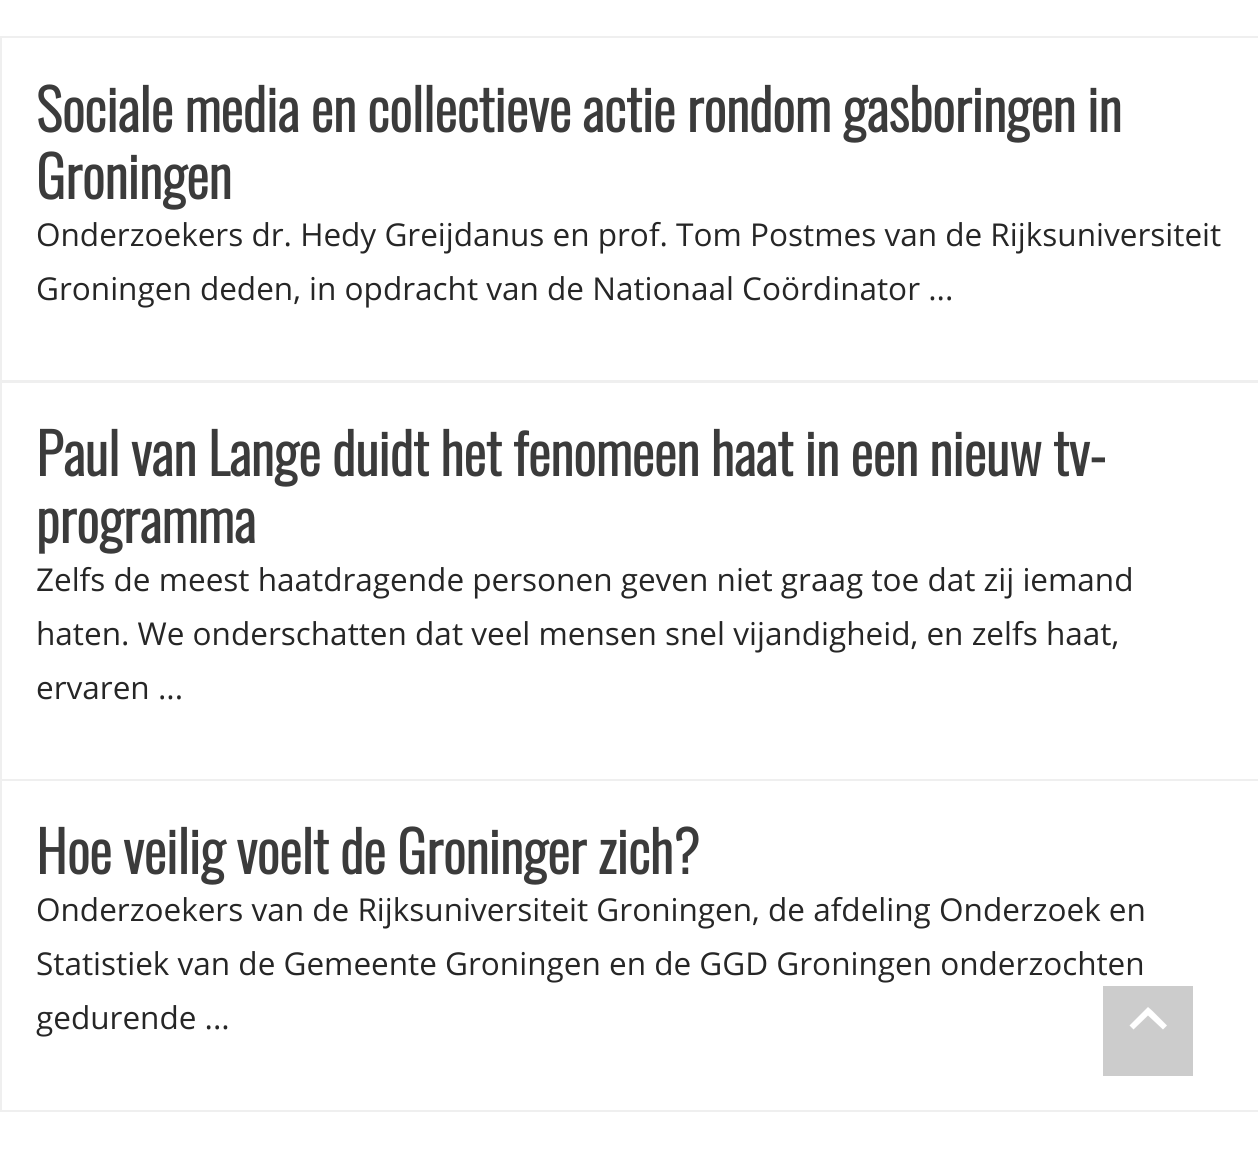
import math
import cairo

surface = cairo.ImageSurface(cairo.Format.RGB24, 1258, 1153)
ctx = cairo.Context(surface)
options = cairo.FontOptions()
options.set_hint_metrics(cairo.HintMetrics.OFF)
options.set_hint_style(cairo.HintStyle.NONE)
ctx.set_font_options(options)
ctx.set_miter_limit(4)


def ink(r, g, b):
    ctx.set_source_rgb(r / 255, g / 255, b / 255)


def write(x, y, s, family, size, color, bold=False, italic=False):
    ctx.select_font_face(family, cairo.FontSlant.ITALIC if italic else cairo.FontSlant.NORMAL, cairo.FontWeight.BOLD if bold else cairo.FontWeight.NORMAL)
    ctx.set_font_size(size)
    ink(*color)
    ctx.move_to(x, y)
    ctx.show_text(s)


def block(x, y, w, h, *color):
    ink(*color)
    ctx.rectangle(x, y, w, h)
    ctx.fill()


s1 = dict(family="Oswald", size=56.25, color=(59, 59, 59), bold=True)
s2 = dict(family="Open Sans", size=31.5, color=(38, 38, 38))

ink(255, 255, 255)
ctx.paint()
ctx.rectangle(1, 37, 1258, 345)
ink(239, 239, 239)
ctx.stroke()
write(36, 132, "Sociale media en collectieve actie rondom gasboringen in", **s1)
write(36, 199, "Groningen", **s1)
write(36, 246, "Onderzoekers dr. Hedy Greijdanus en prof. Tom Postmes van de Rijksuniversiteit", **s2)
write(36, 300, "Groningen deden, in opdracht van de Nationaal Coördinator ...", **s2)
ctx.rectangle(1, 381, 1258, 399)
ink(239, 239, 239)
ctx.stroke()
write(36, 476, "Paul van Lange duidt het fenomeen haat in een nieuw tv-", **s1)
write(36, 543, "programma", **s1)
write(36, 591, "Zelfs de meest haatdragende personen geven niet graag toe dat zij iemand", **s2)
write(36, 645, "haten. We onderschatten dat veel mensen snel vijandigheid, en zelfs haat,", **s2)
write(36, 699, "ervaren ...", **s2)
ctx.rectangle(1, 780, 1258, 331)
ink(239, 239, 239)
ctx.stroke()
write(36, 874, "Hoe veilig voelt de Groninger zich?", **s1)
write(36, 921, "Onderzoekers van de Rijksuniversiteit Groningen, de afdeling Onderzoek en", **s2)
write(36, 975, "Statistiek van de Gemeente Groningen en de GGD Groningen onderzochten", **s2)
write(36, 1029, "gedurende ...", **s2)
block(1103, 986, 90, 90, 204, 204, 204)
ink(255, 255, 255)
ctx.new_path()
ctx.move_to(1152.5, 1011)
ctx.line_to(1167, 1025.5)
ctx.line_to(1163, 1029.5)
ctx.line_to(1148, 1015.5)
ctx.line_to(1133.5, 1029.5)
ctx.line_to(1129.5, 1025.5)
ctx.line_to(1148, 1007)
ctx.close_path()
ctx.fill()
surface.write_to_png("screenshot.png")
